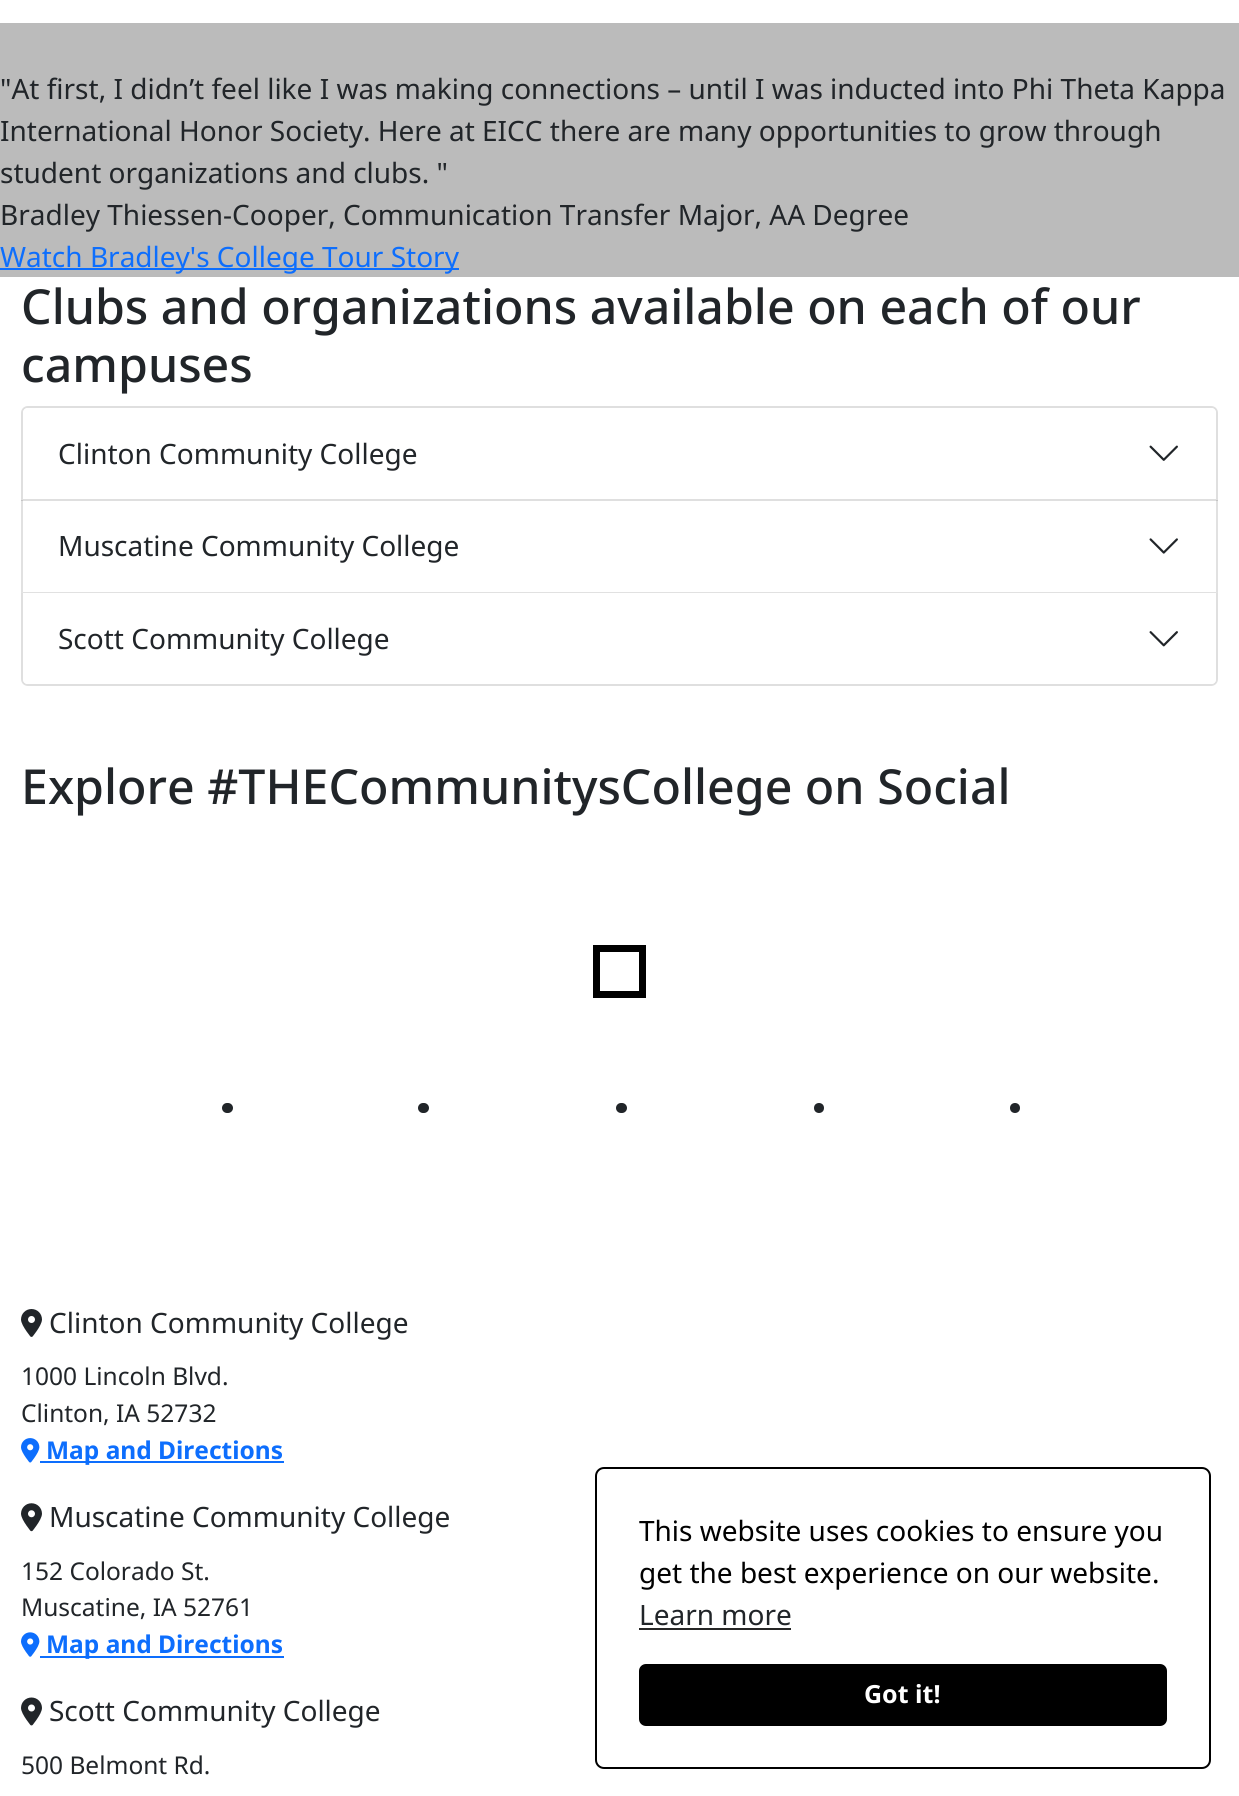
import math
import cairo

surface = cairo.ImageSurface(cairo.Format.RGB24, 1239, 1796)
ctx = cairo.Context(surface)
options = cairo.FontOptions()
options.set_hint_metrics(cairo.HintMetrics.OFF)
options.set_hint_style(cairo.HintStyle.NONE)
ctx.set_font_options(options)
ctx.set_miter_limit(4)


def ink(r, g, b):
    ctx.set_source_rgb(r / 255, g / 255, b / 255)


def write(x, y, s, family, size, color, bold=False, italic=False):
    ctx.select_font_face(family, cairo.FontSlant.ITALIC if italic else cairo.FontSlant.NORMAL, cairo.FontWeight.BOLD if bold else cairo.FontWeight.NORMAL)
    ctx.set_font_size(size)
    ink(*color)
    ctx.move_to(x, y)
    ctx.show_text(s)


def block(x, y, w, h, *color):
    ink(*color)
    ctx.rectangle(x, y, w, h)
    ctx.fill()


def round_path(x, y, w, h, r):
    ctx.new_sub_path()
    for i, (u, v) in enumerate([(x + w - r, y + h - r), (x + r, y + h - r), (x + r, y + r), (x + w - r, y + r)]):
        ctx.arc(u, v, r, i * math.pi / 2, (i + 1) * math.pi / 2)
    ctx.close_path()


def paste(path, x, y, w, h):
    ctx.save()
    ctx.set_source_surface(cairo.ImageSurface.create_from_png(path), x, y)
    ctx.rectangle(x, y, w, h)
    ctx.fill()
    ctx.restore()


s1 = dict(family="Noto Sans", size=28, color=(33, 37, 41))
s2 = dict(family="Noto Sans", size=28, color=(13, 110, 253))
s3 = dict(family="Noto Sans Medium", size=48.25, color=(33, 37, 41))
s4 = dict(family="Noto Sans", size=24.5, color=(33, 37, 41))
s5 = dict(family="Noto Sans", size=24.5, color=(13, 110, 253), bold=True)
s6 = dict(family="Noto Sans", size=28, color=(0, 0, 0))
s7 = dict(family="Noto Sans", size=25, color=(255, 255, 255), bold=True)

ink(255, 255, 255)
ctx.paint()
block(0, 23, 1239, 254, 187, 187, 187)
write(0, 99, "\"At first, I didn’t feel like I was making connections – until I was inducted into Phi Theta Kappa", **s1)
write(0, 141, "International Honor Society. Here at EICC there are many opportunities to grow through", **s1)
write(0, 183, "student organizations and clubs. \"", **s1)
write(0, 225, "Bradley Thiessen-Cooper, Communication Transfer Major, AA Degree", **s1)
block(0, 268, 459, 2, 13, 110, 253)
write(0, 267, "Watch Bradley's College Tour Story", **s2)
write(21, 324, "Clubs and organizations available on each of our", **s3)
write(21, 382, "campuses", **s3)
ctx.new_path()
ctx.move_to(28, 407)
ctx.line_to(1211, 407)
ctx.curve_to(1214.5, 407, 1217, 409.5, 1217, 413)
ctx.line_to(1217, 500)
ctx.line_to(22, 500)
ctx.line_to(22, 413)
ctx.curve_to(22, 409.5, 24.5, 407, 28, 407)
ctx.close_path()
ink(223, 223, 223)
ctx.stroke()
ink(255, 255, 255)
ctx.new_path()
ctx.move_to(28, 408)
ctx.line_to(1211, 408)
ctx.curve_to(1214, 408, 1216, 410, 1216, 413)
ctx.line_to(1216, 499)
ctx.line_to(23, 499)
ctx.line_to(23, 413)
ctx.curve_to(23, 410, 25, 408, 28, 408)
ctx.close_path()
ctx.fill()
write(58, 464, "Clinton Community College", **s1)
paste("pic1.png", 1149, 445, 29, 16)
ctx.set_source_rgba(0, 0, 0, 0.12)
ctx.new_path()
ctx.move_to(1218, 500)
ctx.line_to(1218, 593)
ctx.line_to(1216, 592)
ctx.line_to(1216, 500)
ctx.close_path()
ctx.fill()
ctx.new_path()
ctx.move_to(1218, 593)
ctx.line_to(21, 593)
ctx.line_to(23, 592)
ctx.line_to(1216, 592)
ctx.close_path()
ctx.fill()
ctx.new_path()
ctx.move_to(21, 593)
ctx.line_to(21, 500)
ctx.line_to(23, 500)
ctx.line_to(23, 592)
ctx.close_path()
ctx.fill()
write(58, 556, "Muscatine Community College", **s1)
paste("pic2.png", 1149, 538, 29, 16)
ink(223, 223, 223)
ctx.set_fill_rule(cairo.FillRule.EVEN_ODD)
ctx.new_path()
ctx.move_to(21, 593)
ctx.line_to(1218, 593)
ctx.line_to(1218, 679)
ctx.curve_to(1218, 683, 1215, 686, 1211, 686)
ctx.line_to(28, 686)
ctx.curve_to(24, 686, 21, 683, 21, 679)
ctx.close_path()
ctx.move_to(23, 593)
ctx.line_to(1216, 593)
ctx.line_to(1216, 679)
ctx.curve_to(1216, 682, 1214, 684, 1211, 684)
ctx.line_to(28, 684)
ctx.curve_to(25, 684, 23, 682, 23, 679)
ctx.close_path()
ctx.fill()
ink(255, 255, 255)
ctx.new_path()
ctx.move_to(23, 593)
ctx.line_to(1216, 593)
ctx.line_to(1216, 679)
ctx.curve_to(1216, 682, 1214, 684, 1211, 684)
ctx.line_to(28, 684)
ctx.curve_to(25, 684, 23, 682, 23, 679)
ctx.close_path()
ctx.fill()
write(58, 649, "Scott Community College", **s1)
paste("pic3.png", 1149, 631, 29, 16)
write(21, 804, "Explore #THECommunitysCollege on Social", **s3)
ctx.rectangle(596.5, 948.5, 46, 46)
ink(0, 0, 0)
ctx.set_line_width(7)
ctx.stroke()
ink(33, 37, 41)
round_path(222, 1103, 11, 10, 5)
ctx.fill()
round_path(418, 1103, 11, 10, 5)
ctx.fill()
round_path(616, 1103, 11, 10, 5)
ctx.fill()
ctx.arc(819, 1108, 5, 0, 2 * math.pi)
ctx.fill()
ctx.arc(1015, 1108, 5, 0, 2 * math.pi)
ctx.fill()
paste("pic4.png", 21, 1309, 21, 28)
write(49, 1333, "Clinton Community College", **s1)
write(21, 1385, "1000 Lincoln Blvd.", **s4)
write(21, 1422, "Clinton, IA 52732", **s4)
paste("pic5.png", 21, 1438, 19, 25)
block(40, 1461, 244, 2, 13, 110, 253)
write(46, 1459, "Map and Directions", **s5)
paste("pic6.png", 21, 1503, 21, 29)
write(49, 1527, "Muscatine Community College", **s1)
write(21, 1580, "152 Colorado St.", **s4)
write(21, 1616, "Muscatine, IA 52761", **s4)
paste("pic7.png", 21, 1632, 19, 25)
block(40, 1656, 244, 2, 13, 110, 253)
write(46, 1653, "Map and Directions", **s5)
paste("pic8.png", 21, 1697, 21, 29)
write(49, 1721, "Scott Community College", **s1)
write(21, 1774, "500 Belmont Rd.", **s4)
round_path(596, 1468, 614, 300, 8)
ink(0, 0, 0)
ctx.set_line_width(2)
ctx.stroke()
write(639, 1541, "This website uses cookies to ensure you", **s6)
write(639, 1583, "get the best experience on our website.", **s6)
write(639, 1625, "Learn more", **s1)
block(639, 1628, 152, 2, 38, 38, 38)
ink(0, 0, 0)
round_path(639, 1664, 528, 62, 7)
ctx.fill()
write(864, 1703, "Got it!", **s7)
surface.write_to_png("screenshot.png")
